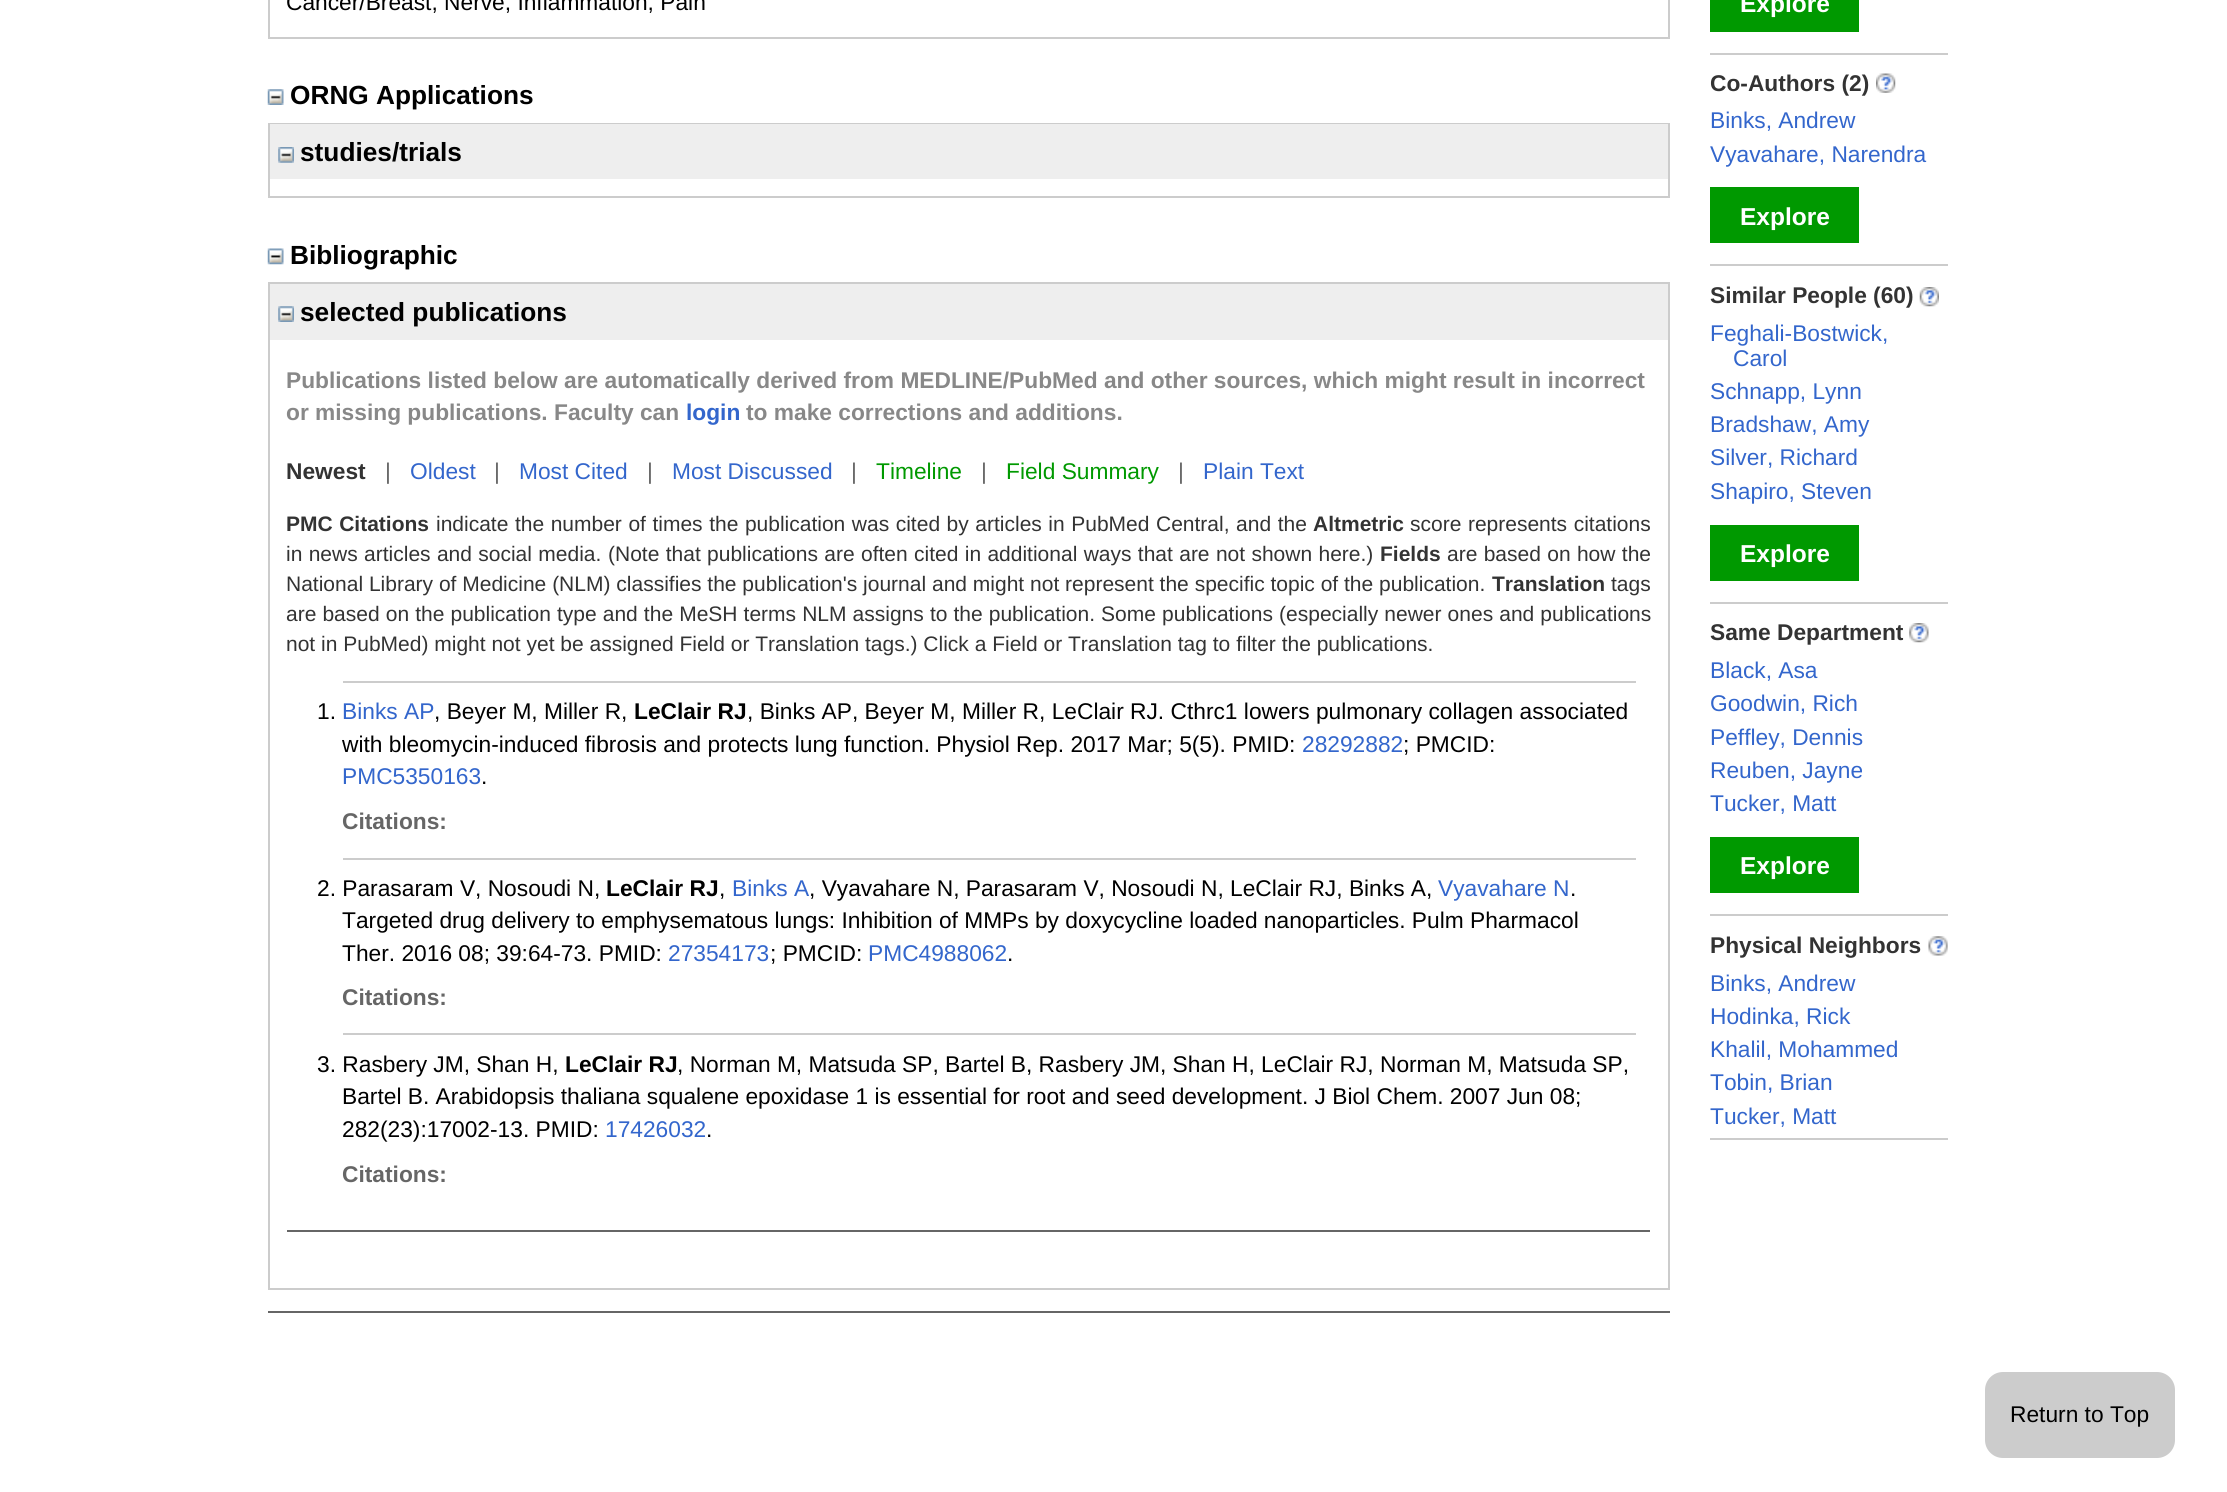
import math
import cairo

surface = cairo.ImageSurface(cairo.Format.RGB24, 2227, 1492)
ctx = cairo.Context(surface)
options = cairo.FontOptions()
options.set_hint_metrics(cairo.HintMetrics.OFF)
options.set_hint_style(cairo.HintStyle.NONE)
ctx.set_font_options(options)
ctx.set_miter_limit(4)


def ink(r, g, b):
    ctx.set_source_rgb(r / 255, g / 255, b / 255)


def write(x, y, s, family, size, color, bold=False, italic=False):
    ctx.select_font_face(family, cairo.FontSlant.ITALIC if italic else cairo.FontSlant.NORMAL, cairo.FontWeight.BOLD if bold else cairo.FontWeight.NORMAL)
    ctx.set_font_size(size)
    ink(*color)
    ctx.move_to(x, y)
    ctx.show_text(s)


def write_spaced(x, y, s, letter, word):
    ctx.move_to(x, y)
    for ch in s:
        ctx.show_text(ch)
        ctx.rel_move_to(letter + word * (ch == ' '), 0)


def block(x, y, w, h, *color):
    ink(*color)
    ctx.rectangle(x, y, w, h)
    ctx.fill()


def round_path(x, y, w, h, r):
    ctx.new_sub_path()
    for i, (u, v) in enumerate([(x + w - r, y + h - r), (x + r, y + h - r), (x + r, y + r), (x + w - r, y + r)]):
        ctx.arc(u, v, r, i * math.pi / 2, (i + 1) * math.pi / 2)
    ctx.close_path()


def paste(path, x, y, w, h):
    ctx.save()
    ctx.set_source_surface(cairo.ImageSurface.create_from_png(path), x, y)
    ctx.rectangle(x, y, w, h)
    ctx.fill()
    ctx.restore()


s1 = dict(family="Liberation Sans", size=22.75, color=(0, 0, 0))
s2 = dict(family="Liberation Sans", size=26.25, color=(0, 0, 0), bold=True)
s3 = dict(family="Liberation Sans", size=22.75, color=(136, 136, 136), bold=True)
s4 = dict(family="Liberation Sans", size=22.75, color=(51, 102, 204), bold=True)
s5 = dict(family="Liberation Sans", size=22.75, color=(51, 51, 51), bold=True)
s6 = dict(family="Liberation Sans", size=22.75, color=(102, 102, 102))
s7 = dict(family="Liberation Sans", size=22.75, color=(51, 102, 204))
s8 = dict(family="Liberation Sans", size=22.75, color=(0, 153, 0))
s9 = dict(family="Liberation Sans", size=21, color=(51, 51, 51), bold=True)
s10 = dict(family="Liberation Sans", size=21, color=(51, 51, 51))
s11 = dict(family="Liberation Sans", size=22.75, color=(0, 0, 0), bold=True)
s12 = dict(family="Liberation Sans", size=22.75, color=(102, 102, 102), bold=True)
s13 = dict(family="Liberation Sans", size=24.5, color=(255, 255, 255), bold=True)

ink(255, 255, 255)
ctx.paint()
ctx.rectangle(269, -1, 1400, 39)
ink(204, 204, 204)
ctx.stroke()
write(286, 10, "Cancer/Breast, Nerve, Inflammation, Pain", **s1)
paste("pic1.png", 267, 89, 17, 16)
write(290, 104, "ORNG Applications", **s2)
ctx.rectangle(269, 124, 1400, 73)
ink(204, 204, 204)
ctx.stroke()
block(270, 124, 1398, 55, 238, 238, 238)
paste("pic2.png", 278, 147, 16, 16)
write(300, 161, "studies/trials", **s2)
paste("pic3.png", 267, 248, 17, 17)
write(290, 264, "Bibliographic", **s2)
ctx.rectangle(269, 283, 1400, 1006)
ink(204, 204, 204)
ctx.stroke()
block(270, 284, 1398, 56, 238, 238, 238)
paste("pic4.png", 278, 306, 16, 16)
write(300, 321, "selected publications", **s2)
write(286, 388, "Publications listed below are automatically derived from MEDLINE/PubMed and other sources, which might result in incorrect", **s3)
write(286, 420, "or missing publications. Faculty can", **s3)
write(686, 420, "login", **s4)
write(746, 420, "to make corrections and additions.", **s3)
write(286, 479, "Newest", **s5)
write(385, 479, "|", **s6)
write(410, 479, "Oldest", **s7)
write(494, 479, "|", **s6)
write(519, 479, "Most Cited", **s7)
write(647, 479, "|", **s6)
write(672, 479, "Most Discussed", **s7)
write(851, 479, "|", **s6)
write(876, 479, "Timeline", **s8)
write(981, 479, "|", **s6)
write(1006, 479, "Field Summary", **s8)
write(1178, 479, "|", **s6)
write(1203, 479, "Plain Text", **s7)
ctx.select_font_face("Liberation Sans", cairo.FontSlant.NORMAL, cairo.FontWeight.BOLD)
ctx.set_font_size(21)
ink(51, 51, 51)
write_spaced(286, 531, "PMC Citations", 0, 0.7)
ctx.select_font_face("Liberation Sans")
write_spaced(436, 531, "indicate the number of times the publication was cited by articles in PubMed Central, and the", 0, 0.7)
write(1313, 531, "Altmetric", **s9)
ctx.select_font_face("Liberation Sans")
write_spaced(1410, 531, "score represents citations", 0, 0.7)
write_spaced(286, 561, "in news articles and social media.", 0, 0.5)
write_spaced(608, 561, "(Note that publications are often cited in additional ways that are not shown here.)", 0, 0.5)
write(1380, 561, "Fields", **s9)
ctx.select_font_face("Liberation Sans")
write_spaced(1447, 561, "are based on how the", 0, 0.5)
write(286, 591, "National Library of Medicine (NLM) classifies the publication's journal and might not represent the specific topic of the publication.", **s10)
write(1492, 591, "Translation", **s9)
write(1611, 591, "tags", **s10)
write_spaced(286, 621, "are based on the publication type and the MeSH terms NLM assigns to the publication. Some publications (especially newer ones and publications", 0, 0.25)
write(286, 651, "not in PubMed) might not yet be assigned Field or Translation tags.) Click a Field or Translation tag to filter the publications.", **s10)
block(343, 681, 1293, 2, 204, 204, 204)
write(317, 719, "1.", **s1)
write(342, 719, "Binks AP", **s7)
write(434, 719, ", Beyer M, Miller R,", **s1)
write(634, 719, "LeClair RJ", **s11)
write(747, 719, ", Binks AP, Beyer M, Miller R, LeClair RJ. Cthrc1 lowers pulmonary collagen associated", **s1)
write(342, 752, "with bleomycin-induced fibrosis and protects lung function. Physiol Rep. 2017 Mar; 5(5). PMID:", **s1)
write(1302, 752, "28292882", **s7)
write(1403, 752, "; PMCID:", **s1)
write(342, 784, "PMC5350163", **s7)
write(481, 784, ".", **s1)
write(342, 829, "Citations:", **s12)
block(343, 858, 1293, 2, 204, 204, 204)
write(317, 896, "2. Parasaram V, Nosoudi N,", **s1)
write(606, 896, "LeClair RJ", **s11)
write(719, 896, ",", **s1)
write(732, 896, "Binks A", **s7)
write(809, 896, ", Vyavahare N, Parasaram V, Nosoudi N, LeClair RJ, Binks A,", **s1)
write(1438, 896, "Vyavahare N", **s7)
write(1570, 896, ".", **s1)
write(342, 928, "Targeted drug delivery to emphysematous lungs: Inhibition of MMPs by doxycycline loaded nanoparticles. Pulm Pharmacol", **s1)
write(342, 961, "Ther. 2016 08; 39:64-73. PMID:", **s1)
write(668, 961, "27354173", **s7)
write(770, 961, "; PMCID:", **s1)
write(868, 961, "PMC4988062", **s7)
write(1007, 961, ".", **s1)
write(342, 1005, "Citations:", **s12)
block(343, 1033, 1293, 2, 204, 204, 204)
write(317, 1072, "3. Rasbery JM, Shan H,", **s1)
write(565, 1072, "LeClair RJ", **s11)
write(677, 1072, ", Norman M, Matsuda SP, Bartel B, Rasbery JM, Shan H, LeClair RJ, Norman M, Matsuda SP,", **s1)
write(342, 1104, "Bartel B. Arabidopsis thaliana squalene epoxidase 1 is essential for root and seed development. J Biol Chem. 2007 Jun 08;", **s1)
write(342, 1137, "282(23):17002-13. PMID:", **s1)
write(605, 1137, "17426032", **s7)
write(706, 1137, ".", **s1)
write(342, 1182, "Citations:", **s12)
block(287, 1230, 1363, 2, 102, 102, 102)
block(268, 1311, 1402, 2, 102, 102, 102)
block(1710, 0, 149, 32, 0, 153, 0)
write(1740, 12, "Explore", **s13)
block(1710, 53, 238, 2, 204, 204, 204)
write(1710, 91, "Co-Authors (2)", **s5)
paste("pic5.png", 1876, 73, 20, 20)
write(1710, 128, "Binks, Andrew", **s7)
write(1710, 162, "Vyavahare, Narendra", **s7)
block(1710, 187, 149, 56, 0, 153, 0)
write(1740, 225, "Explore", **s13)
block(1710, 264, 238, 2, 204, 204, 204)
write(1710, 303, "Similar People (60)", **s5)
paste("pic6.png", 1919, 287, 20, 20)
write(1710, 341, "Feghali-Bostwick,", **s7)
write(1733, 366, "Carol", **s7)
write(1710, 399, "Schnapp, Lynn", **s7)
write(1710, 432, "Bradshaw, Amy", **s7)
write(1710, 465, "Silver, Richard", **s7)
write(1710, 499, "Shapiro, Steven", **s7)
block(1710, 525, 149, 56, 0, 153, 0)
write(1740, 562, "Explore", **s13)
block(1710, 602, 238, 2, 204, 204, 204)
write(1710, 640, "Same Department", **s5)
paste("pic7.png", 1909, 623, 20, 20)
write(1710, 678, "Black, Asa", **s7)
write(1710, 711, "Goodwin, Rich", **s7)
write(1710, 745, "Peffley, Dennis", **s7)
write(1710, 778, "Reuben, Jayne", **s7)
write(1710, 811, "Tucker, Matt", **s7)
block(1710, 837, 149, 56, 0, 153, 0)
write(1740, 874, "Explore", **s13)
block(1710, 914, 238, 2, 204, 204, 204)
write(1710, 953, "Physical Neighbors", **s5)
paste("pic8.png", 1928, 936, 20, 20)
write(1710, 991, "Binks, Andrew", **s7)
write(1710, 1024, "Hodinka, Rick", **s7)
write(1710, 1057, "Khalil, Mohammed", **s7)
write(1710, 1090, "Tobin, Brian", **s7)
write(1710, 1124, "Tucker, Matt", **s7)
block(1710, 1138, 238, 2, 204, 204, 204)
round_path(1985, 1372, 190, 86, 18)
ctx.fill()
write(2010, 1422, "Return to Top", **s1)
surface.write_to_png("screenshot.png")
